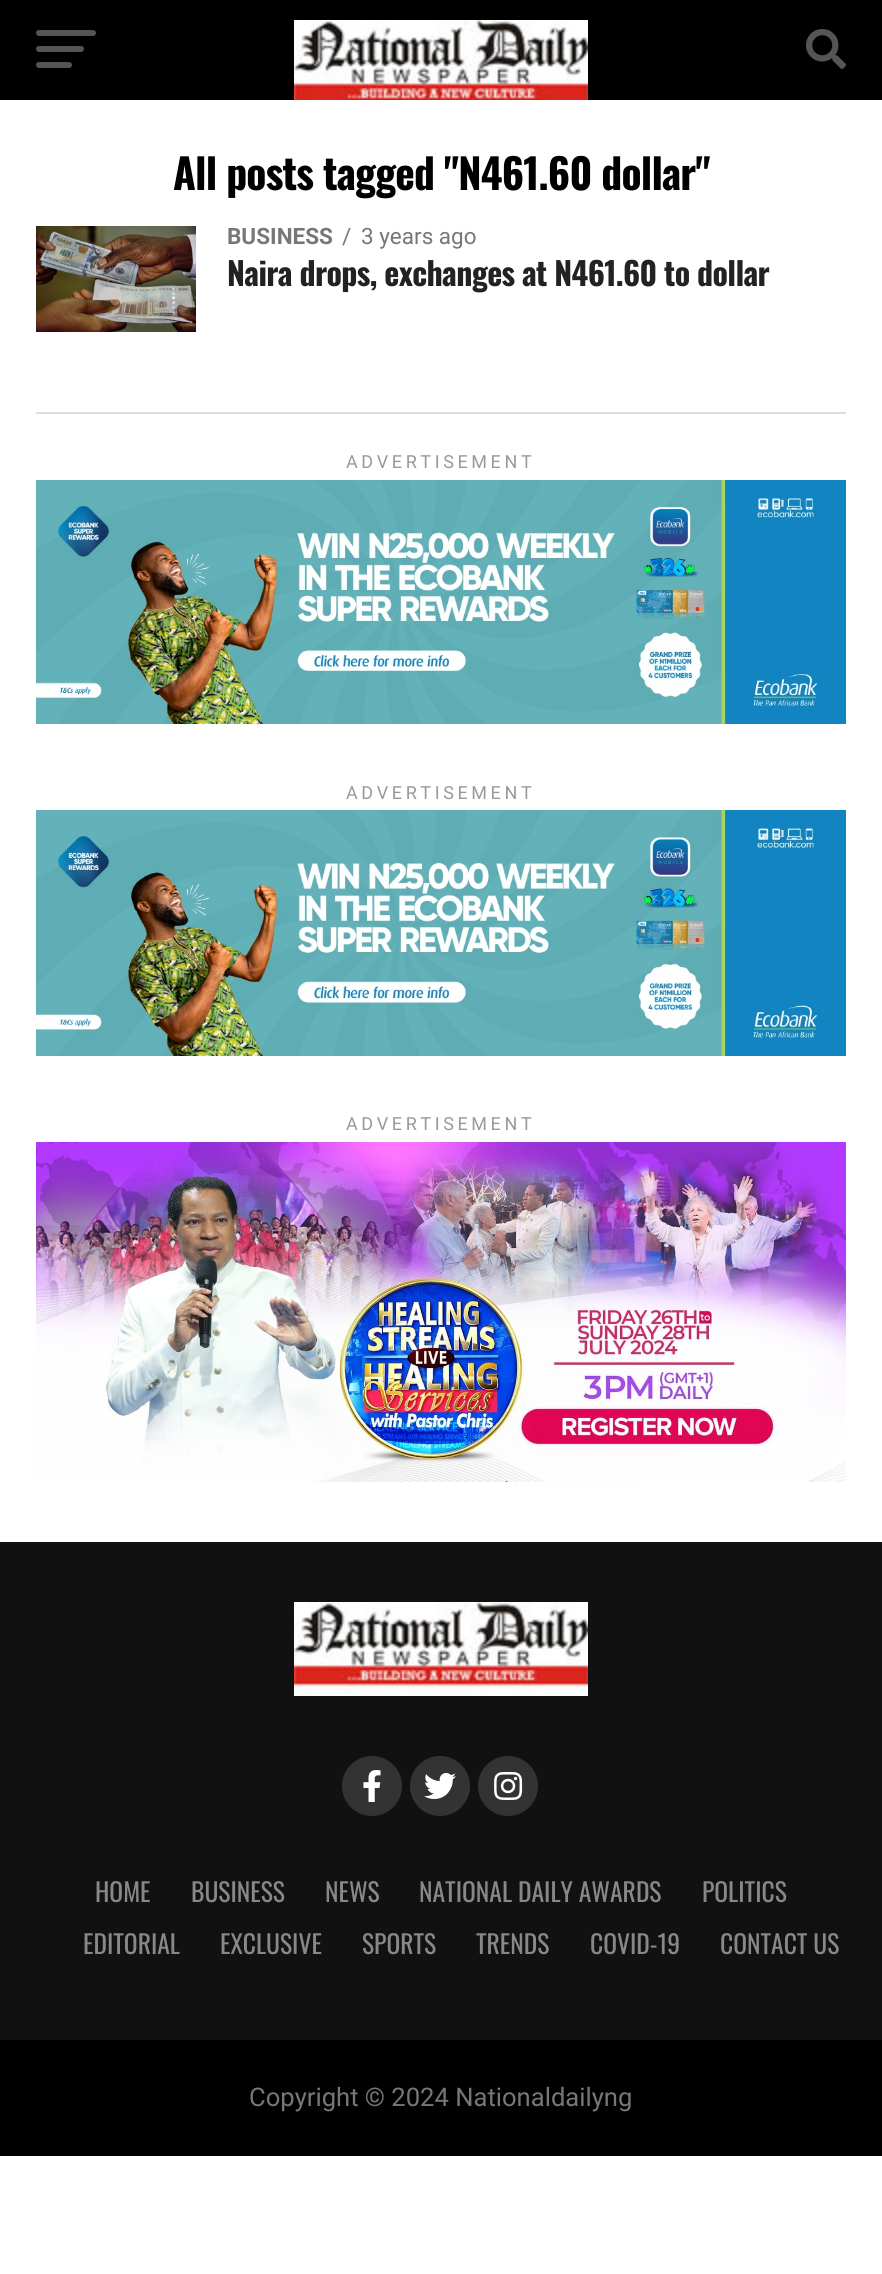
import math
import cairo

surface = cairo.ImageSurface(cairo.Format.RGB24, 882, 2274)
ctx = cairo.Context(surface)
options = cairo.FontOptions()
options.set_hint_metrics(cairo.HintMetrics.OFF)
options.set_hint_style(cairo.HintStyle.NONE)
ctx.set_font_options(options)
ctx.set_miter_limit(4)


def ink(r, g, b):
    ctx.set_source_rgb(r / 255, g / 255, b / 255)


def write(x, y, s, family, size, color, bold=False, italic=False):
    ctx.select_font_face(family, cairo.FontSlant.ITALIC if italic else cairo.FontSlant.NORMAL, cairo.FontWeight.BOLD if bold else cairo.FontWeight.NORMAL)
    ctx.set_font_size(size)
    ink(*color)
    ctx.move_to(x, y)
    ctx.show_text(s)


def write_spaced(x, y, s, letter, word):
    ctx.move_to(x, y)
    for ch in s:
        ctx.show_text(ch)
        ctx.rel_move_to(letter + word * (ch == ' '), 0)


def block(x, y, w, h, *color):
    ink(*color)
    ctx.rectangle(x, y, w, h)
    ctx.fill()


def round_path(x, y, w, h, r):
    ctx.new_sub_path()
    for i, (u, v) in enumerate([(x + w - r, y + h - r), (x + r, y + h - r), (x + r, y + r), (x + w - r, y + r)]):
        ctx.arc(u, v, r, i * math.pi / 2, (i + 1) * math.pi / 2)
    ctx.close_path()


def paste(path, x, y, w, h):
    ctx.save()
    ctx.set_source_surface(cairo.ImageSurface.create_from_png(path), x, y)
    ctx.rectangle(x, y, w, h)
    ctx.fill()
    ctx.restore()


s1 = dict(family="Roboto", size=22.5, color=(119, 119, 119), bold=True)
s2 = dict(family="Roboto", size=22.5, color=(119, 119, 119))
s3 = dict(family="Oswald", size=25.6, color=(136, 136, 136))
s4 = dict(family="Roboto", size=25.6, color=(119, 119, 119))

ink(255, 255, 255)
ctx.paint()
block(0, 0, 882, 100, 0, 0, 0)
ink(85, 85, 85)
round_path(36, 30, 60, 6, 3)
ctx.fill()
round_path(36, 46, 48, 6, 3)
ctx.fill()
round_path(36, 62, 36, 6, 3)
ctx.fill()
paste("pic1.png", 294, 20, 294, 80)
paste("pic2.png", 806, 29, 40, 40)
ctx.select_font_face("Oswald", cairo.FontSlant.NORMAL, cairo.FontWeight.BOLD)
ctx.set_font_size(41.6)
ink(0, 0, 0)
write_spaced(173, 190, "All posts tagged \"N461.60 dollar\"", -0.8, 0)
paste("pic3.png", 36, 226, 160, 106)
write(227, 244, "BUSINESS", **s1)
write(342, 244, "/", **s2)
write(361, 244, "3 years ago", **s2)
ctx.select_font_face("Oswald", cairo.FontSlant.NORMAL, cairo.FontWeight.BOLD)
ctx.set_font_size(32)
ink(34, 34, 34)
write_spaced(227, 286, "Naira drops, exchanges at N461.60 to dollar", -0.65, 0)
block(36, 412, 810, 2, 221, 221, 221)
ctx.select_font_face("Roboto")
ctx.set_font_size(18)
ink(153, 153, 153)
write_spaced(346, 468, "ADVERTISEMENT", 3.6, 0)
paste("pic4.png", 36, 480, 810, 244)
write_spaced(346, 799, "ADVERTISEMENT", 3.6, 0)
paste("pic5.png", 36, 810, 810, 246)
write_spaced(346, 1130, "ADVERTISEMENT", 3.6, 0)
paste("pic6.png", 36, 1142, 810, 340)
block(0, 1542, 882, 498, 17, 17, 17)
paste("pic7.png", 294, 1602, 294, 94)
ink(51, 51, 51)
ctx.arc(372, 1786, 30, 0, 2 * math.pi)
ctx.fill()
paste("pic8.png", 363, 1770, 18, 32)
ctx.arc(440, 1786, 30, 0, 2 * math.pi)
ctx.fill()
paste("pic9.png", 424, 1773, 32, 26)
ctx.arc(508, 1786, 30, 0, 2 * math.pi)
ctx.fill()
paste("pic10.png", 494, 1772, 29, 28)
write(95, 1902, "HOME", **s3)
write(191, 1902, "BUSINESS", **s3)
write(325, 1902, "NEWS", **s3)
write(419, 1902, "NATIONAL DAILY AWARDS", **s3)
write(702, 1902, "POLITICS", **s3)
write(83, 1954, "EDITORIAL", **s3)
write(220, 1954, "EXCLUSIVE", **s3)
write(362, 1954, "SPORTS", **s3)
write(476, 1954, "TRENDS", **s3)
write(590, 1954, "COVID-19", **s3)
write(720, 1954, "CONTACT US", **s3)
block(0, 2040, 882, 116, 0, 0, 0)
write(249, 2106, "Copyright © 2024 Nationaldailyng", **s4)
surface.write_to_png("screenshot.png")
